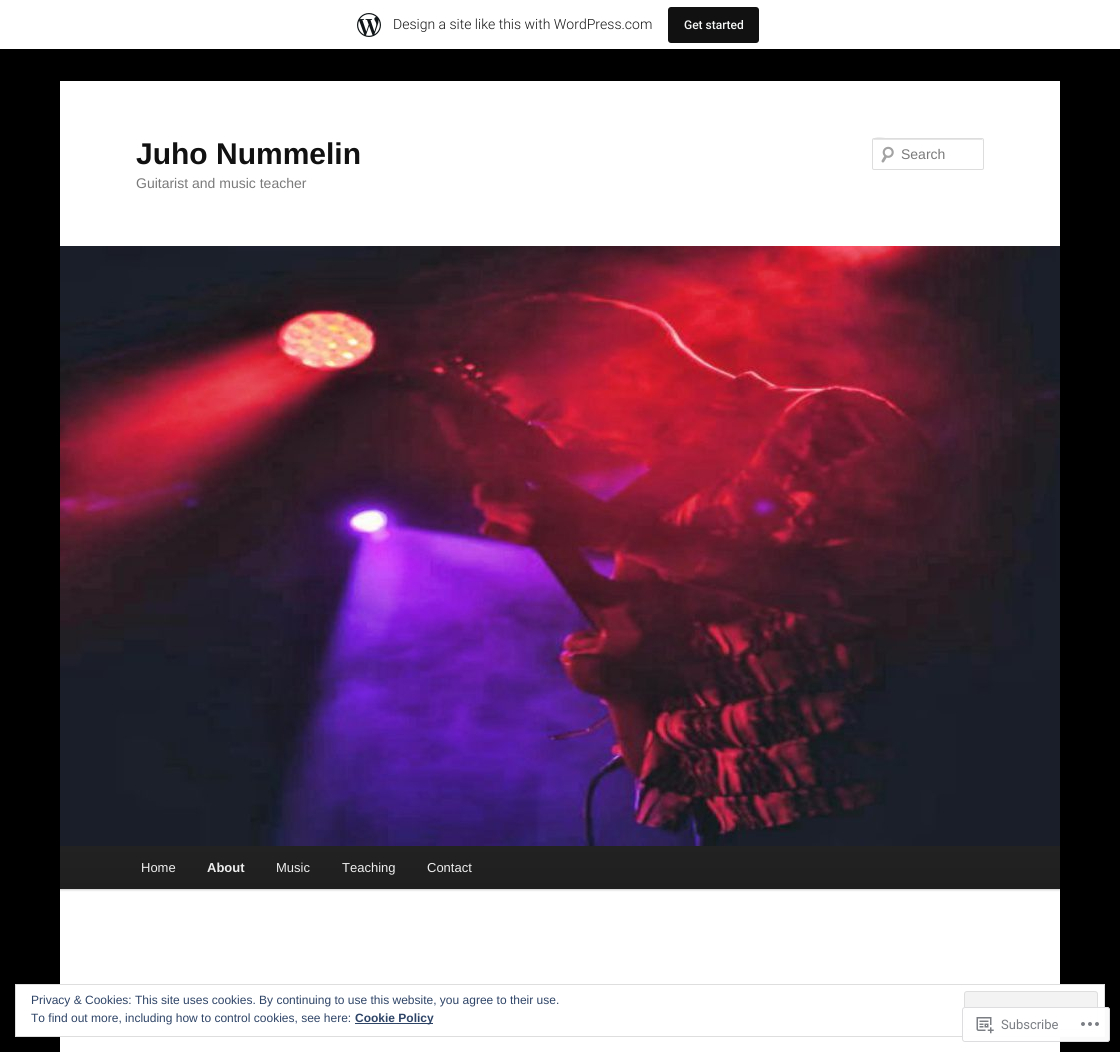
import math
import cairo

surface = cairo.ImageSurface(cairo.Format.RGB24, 1120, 1052)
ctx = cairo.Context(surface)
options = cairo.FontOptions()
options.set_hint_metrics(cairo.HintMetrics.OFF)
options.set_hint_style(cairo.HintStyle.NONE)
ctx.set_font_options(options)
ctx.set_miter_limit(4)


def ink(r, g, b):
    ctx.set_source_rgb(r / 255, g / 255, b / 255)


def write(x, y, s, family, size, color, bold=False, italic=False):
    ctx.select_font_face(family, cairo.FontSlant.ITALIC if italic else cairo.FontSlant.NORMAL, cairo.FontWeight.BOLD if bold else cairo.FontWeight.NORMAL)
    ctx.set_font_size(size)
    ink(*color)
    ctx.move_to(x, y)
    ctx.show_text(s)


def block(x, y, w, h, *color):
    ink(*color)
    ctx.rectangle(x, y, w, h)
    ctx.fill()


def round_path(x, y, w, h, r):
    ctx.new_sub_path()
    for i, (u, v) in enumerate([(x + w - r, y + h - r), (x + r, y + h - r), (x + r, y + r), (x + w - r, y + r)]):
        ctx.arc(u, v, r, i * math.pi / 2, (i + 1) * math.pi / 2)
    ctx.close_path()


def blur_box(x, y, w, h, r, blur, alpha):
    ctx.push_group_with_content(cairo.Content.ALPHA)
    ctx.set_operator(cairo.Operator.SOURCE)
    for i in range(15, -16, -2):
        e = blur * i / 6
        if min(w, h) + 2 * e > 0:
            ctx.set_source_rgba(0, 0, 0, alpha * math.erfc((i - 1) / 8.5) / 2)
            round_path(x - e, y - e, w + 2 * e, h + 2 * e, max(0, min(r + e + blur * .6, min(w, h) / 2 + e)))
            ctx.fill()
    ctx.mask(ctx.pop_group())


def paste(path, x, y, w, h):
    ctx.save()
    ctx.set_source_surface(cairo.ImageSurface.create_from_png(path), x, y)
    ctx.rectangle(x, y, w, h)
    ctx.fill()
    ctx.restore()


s1 = dict(family="Roboto Light", size=14, color=(23, 23, 23))
s2 = dict(family="Roboto Medium", size=12, color=(246, 247, 247))
s3 = dict(family="Liberation Sans", size=30, color=(17, 17, 17), bold=True)
s4 = dict(family="Liberation Sans", size=14, color=(122, 122, 122))
s5 = dict(family="Liberation Sans", size=13, color=(238, 238, 238))
s6 = dict(family="Liberation Sans", size=13, color=(238, 238, 238), bold=True)
s7 = dict(family="Liberation Sans", size=12, color=(46, 68, 103))
s8 = dict(family="Liberation Sans", size=12, color=(46, 68, 103), bold=True)
s9 = dict(family="Roboto", size=13, color=(123, 127, 132))

ink(0, 0, 0)
ctx.paint()
block(0, 0, 1120, 49, 255, 255, 255)
paste("pic1.png", 357, 13, 24, 24)
write(393, 29, "Design a site like this with WordPress.com", **s1)
ink(17, 17, 17)
round_path(668, 7, 91, 36, 3)
ctx.fill()
write(684, 29, "Get started", **s2)
block(60, 81, 1000, 971, 255, 255, 255)
write(136, 164, "Juho Nummelin", **s3)
write(136, 188, "Guitarist and music teacher", **s4)
paste("pic2.png", 881, 146, 13, 17)
ink(230, 230, 230)
ctx.new_path()
ctx.move_to(874, 140)
ctx.line_to(983, 140)
ctx.line_to(983, 141)
ctx.line_to(982, 139)
ctx.line_to(892, 139)
ctx.curve_to(888, 139, 873, 134, 873, 141)
ctx.curve_to(873, 140, 873, 140, 874, 140)
ctx.close_path()
ctx.fill()
round_path(872.5, 138.5, 111, 31, 1.5)
ink(221, 221, 221)
ctx.set_line_width(1)
ctx.stroke()
write(901, 159, "Search", **s4)
ink(0, 0, 0)
blur_box(60, 847, 1000, 43, 0, 1, 0.2)
paste("pic3.png", 60, 246, 1000, 600)
gradient = cairo.LinearGradient(560, 846, 560, 889)
gradient.add_color_stop_rgba(0, 0.133, 0.133, 0.133, 1)
gradient.add_color_stop_rgba(1, 0.122, 0.122, 0.122, 1)
ctx.set_source(gradient)
ctx.rectangle(60, 846, 1000, 43)
ctx.fill()
write(141, 872, "Home", **s5)
write(207, 872, "About", **s6)
write(276, 872, "Music", **s5)
write(342, 872, "Teaching", **s5)
write(427, 872, "Contact", **s5)
ink(255, 255, 255)
ctx.rectangle(15.5, 984.5, 1089, 52)
ctx.fill_preserve()
ink(222, 222, 222)
ctx.stroke()
write(31, 1004, "Privacy & Cookies: This site uses cookies. By continuing to use this website, you agree to their use.", **s7)
ink(243, 243, 243)
round_path(964.5, 991.5, 133, 38, 2.5)
ctx.fill_preserve()
ink(222, 222, 222)
ctx.stroke()
write(31, 1022, "To find out more, including how to control cookies, see here:", **s7)
block(355, 1023, 78, 1, 46, 68, 103)
write(355, 1022, "Cookie Policy", **s8)
ctx.set_source_rgba(1, 1, 1, 0.98)
round_path(962, 1007, 148, 35, 3)
ctx.fill()
round_path(962.5, 1007.5, 147, 34, 2.5)
ctx.set_source_rgba(0.863, 0.863, 0.871, 0.98)
ctx.stroke()
paste("pic4.png", 976, 1017, 18, 17)
write(1001, 1029, "Subscribe", **s9)
paste("pic5.png", 1081, 1022, 18, 4)
surface.write_to_png("screenshot.png")
